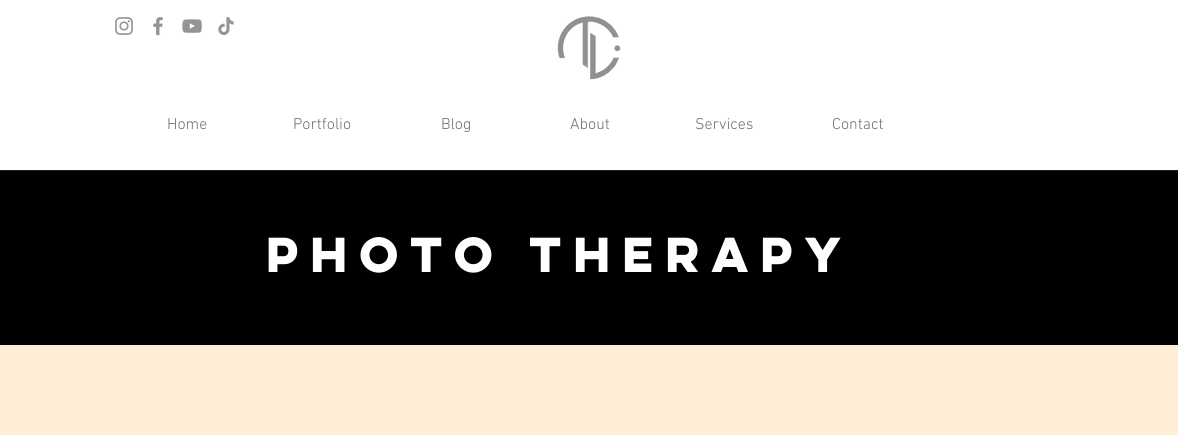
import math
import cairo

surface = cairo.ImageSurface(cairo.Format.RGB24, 1178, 435)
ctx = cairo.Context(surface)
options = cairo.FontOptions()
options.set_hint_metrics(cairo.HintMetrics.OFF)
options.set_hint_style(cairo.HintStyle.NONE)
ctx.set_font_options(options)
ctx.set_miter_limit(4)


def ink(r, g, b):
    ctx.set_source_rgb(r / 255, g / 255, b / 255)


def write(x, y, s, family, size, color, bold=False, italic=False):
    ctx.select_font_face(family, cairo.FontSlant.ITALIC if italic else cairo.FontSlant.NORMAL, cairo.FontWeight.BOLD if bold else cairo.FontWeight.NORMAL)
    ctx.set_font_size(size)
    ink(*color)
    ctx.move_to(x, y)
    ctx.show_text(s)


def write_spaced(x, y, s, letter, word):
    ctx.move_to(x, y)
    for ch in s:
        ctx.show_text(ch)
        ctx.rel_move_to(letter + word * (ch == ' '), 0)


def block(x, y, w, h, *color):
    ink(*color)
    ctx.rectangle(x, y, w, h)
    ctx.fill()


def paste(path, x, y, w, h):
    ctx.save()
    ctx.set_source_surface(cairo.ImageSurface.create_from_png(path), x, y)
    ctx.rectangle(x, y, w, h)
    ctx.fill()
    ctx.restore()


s1 = dict(family="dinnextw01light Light", size=16, color=(112, 112, 112))

ink(0, 0, 0)
ctx.paint()
block(0, 170, 1178, 1, 28, 28, 28)
block(0, 0, 1178, 170, 255, 255, 255)
paste("pic1.png", 115, 17, 18, 18)
paste("pic2.png", 153, 17, 10, 19)
paste("pic3.png", 182, 19, 20, 14)
paste("pic4.png", 218, 17, 16, 19)
paste("pic5.png", 557, 16, 64, 64)
write(167, 129, "Home", **s1)
write(293, 129, "Portfolio", **s1)
write(441, 129, "Blog", **s1)
write(570, 129, "About", **s1)
write(695, 129, "Services", **s1)
write(832, 129, "Contact", **s1)
ctx.select_font_face("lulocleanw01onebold", cairo.FontSlant.NORMAL, cairo.FontWeight.BOLD)
ctx.set_font_size(44)
ink(255, 255, 255)
write_spaced(266, 272, "Photo Therapy", 2.25, 0)
block(0, 345, 1178, 90, 255, 238, 214)
surface.write_to_png("screenshot.png")
